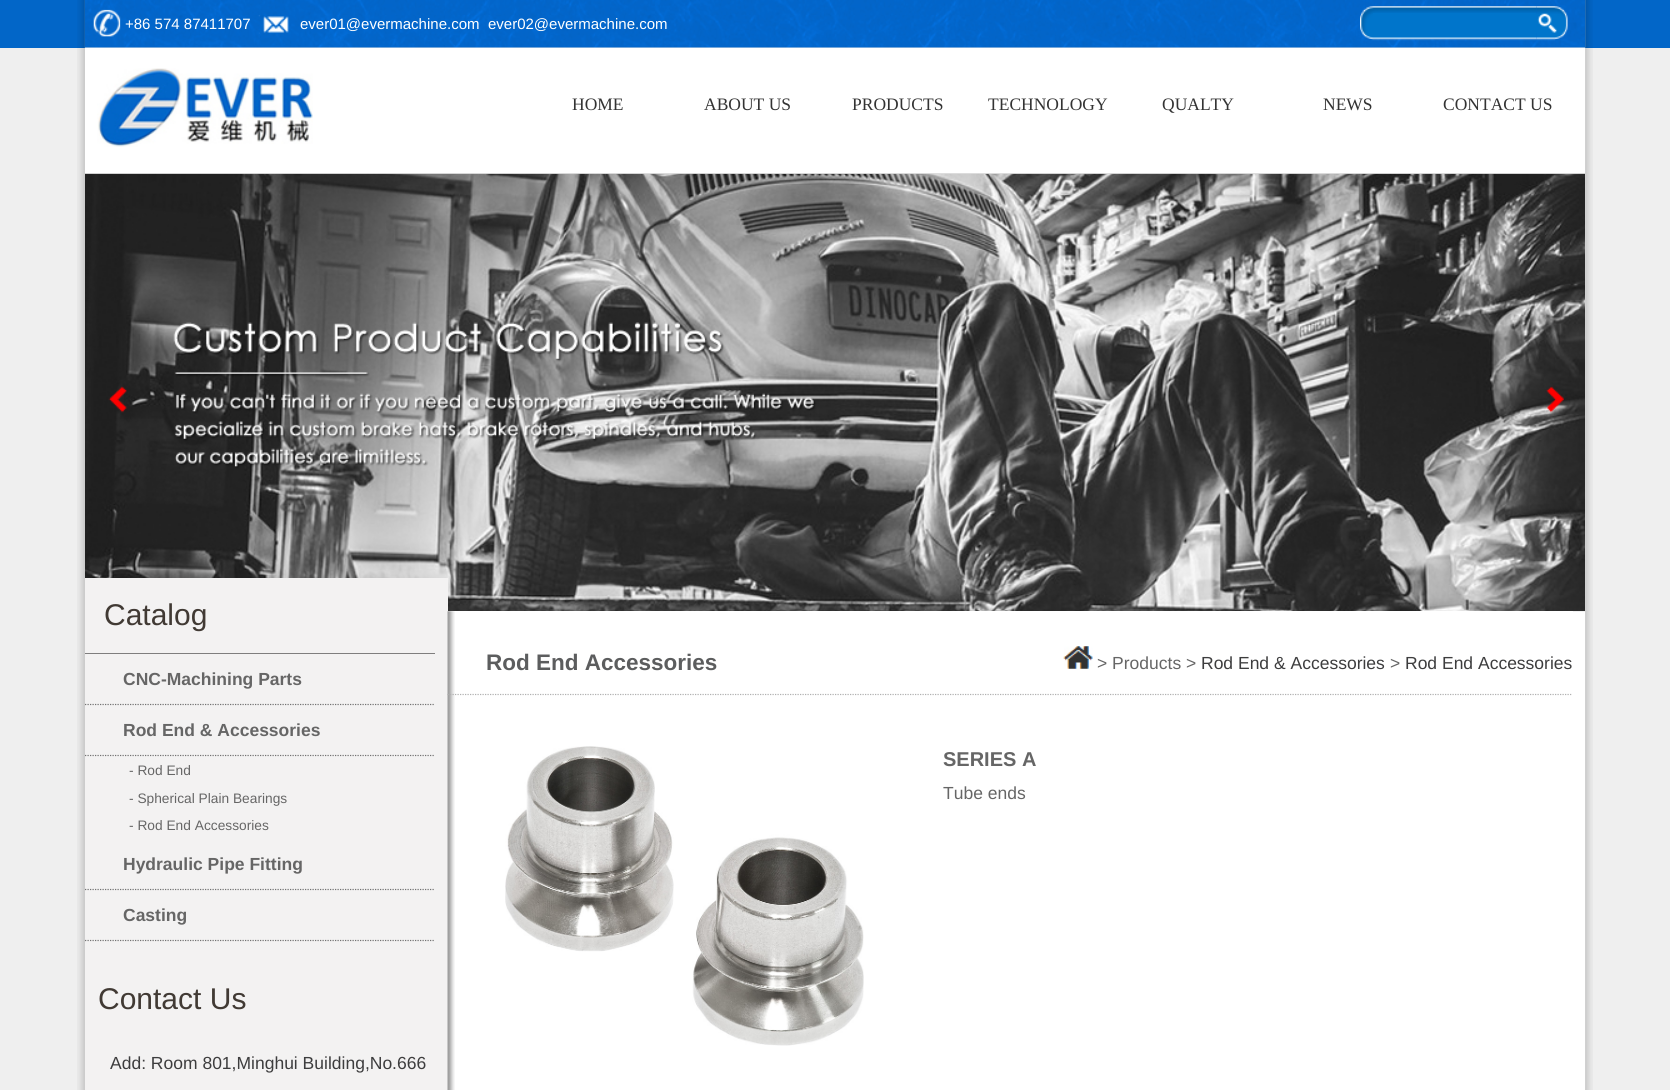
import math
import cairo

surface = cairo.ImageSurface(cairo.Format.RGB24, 1670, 1090)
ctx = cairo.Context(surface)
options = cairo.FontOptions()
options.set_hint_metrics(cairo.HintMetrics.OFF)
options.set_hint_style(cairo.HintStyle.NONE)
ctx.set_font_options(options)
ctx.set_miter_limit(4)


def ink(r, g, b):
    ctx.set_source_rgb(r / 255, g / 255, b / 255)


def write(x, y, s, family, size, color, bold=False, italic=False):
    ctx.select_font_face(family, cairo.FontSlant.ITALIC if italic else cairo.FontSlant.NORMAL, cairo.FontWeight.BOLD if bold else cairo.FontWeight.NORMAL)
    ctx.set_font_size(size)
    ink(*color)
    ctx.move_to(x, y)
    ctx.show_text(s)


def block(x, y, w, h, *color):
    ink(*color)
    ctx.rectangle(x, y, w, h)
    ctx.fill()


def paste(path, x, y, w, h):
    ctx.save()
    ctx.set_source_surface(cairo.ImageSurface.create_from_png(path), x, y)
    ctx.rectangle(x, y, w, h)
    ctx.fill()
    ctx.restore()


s1 = dict(family="Liberation Sans", size=15, color=(255, 255, 255))
s2 = dict(family="Liberation Serif", size=17.5, color=(51, 51, 51))
s3 = dict(family="Liberation Sans", size=30, color=(65, 58, 52))
s4 = dict(family="Liberation Sans", size=17.5, color=(102, 102, 102), bold=True)
s5 = dict(family="Liberation Sans", size=13.75, color=(102, 102, 102))
s6 = dict(family="Liberation Sans", size=17.5, color=(61, 61, 62))
s7 = dict(family="Liberation Sans", size=22.5, color=(92, 93, 94), bold=True)
s8 = dict(family="Liberation Sans", size=17.5, color=(102, 102, 102))
s9 = dict(family="Liberation Sans", size=20, color=(102, 102, 102), bold=True)

ink(239, 239, 239)
ctx.paint()
block(0, 0, 1670, 48, 2, 102, 200)
paste("pic1.png", 77, 0, 1516, 1090)
block(85, 48, 1500, 1042, 255, 255, 255)
block(85, 47, 1500, 1, 232, 232, 232)
paste("pic2.png", 85, 0, 1500, 48)
paste("pic3.png", 93, 9, 196, 28)
write(125, 29, "+86 574 87411707", **s1)
write(300, 29, "ever01@evermachine.com", **s1)
write(488, 29, "ever02@evermachine.com", **s1)
paste("pic4.png", 1360, 6, 177, 35)
block(1373, 13, 164, 20, 0, 117, 203)
paste("pic5.png", 1536, 6, 32, 35)
block(85, 173, 1500, 1, 221, 221, 221)
paste("pic6.png", 97, 68, 216, 79)
write(572, 110, "HOME", **s2)
write(704, 110, "ABOUT US", **s2)
write(852, 110, "PRODUCTS", **s2)
write(988, 110, "TECHNOLOGY", **s2)
write(1162, 110, "QUALTY", **s2)
write(1323, 110, "NEWS", **s2)
write(1443, 110, "CONTACT US", **s2)
paste("pic7.png", 85, 173, 1500, 439)
paste("pic8.png", 108, 386, 19, 27)
paste("pic9.png", 1546, 386, 19, 27)
block(85, 578, 363, 512, 243, 242, 242)
block(85, 653, 350, 1, 127, 126, 126)
write(104, 625, "Catalog", **s3)
ctx.new_path()
ctx.move_to(85, 704.5)
ctx.line_to(435, 704.5)
ink(114, 114, 114)
ctx.set_line_width(1.2)
ctx.set_dash([1.25, 1.25])
ctx.stroke()
write(123, 685, "CNC-Machining Parts", **s4)
ctx.new_path()
ctx.move_to(85, 755.5)
ctx.line_to(435, 755.5)
ink(114, 114, 114)
ctx.stroke()
write(123, 736, "Rod End & Accessories", **s4)
write(129, 775, "- Rod End", **s5)
write(129, 803, "- Spherical Plain Bearings", **s5)
write(129, 830, "- Rod End Accessories", **s5)
ctx.new_path()
ctx.move_to(85, 889.5)
ctx.line_to(435, 889.5)
ink(114, 114, 114)
ctx.stroke()
write(123, 870, "Hydraulic Pipe Fitting", **s4)
ctx.new_path()
ctx.move_to(85, 940.5)
ctx.line_to(435, 940.5)
ink(114, 114, 114)
ctx.stroke()
write(123, 921, "Casting", **s4)
write(98, 1009, "Contact Us", **s3)
write(110, 1069, "Add: Room 801,Minghui Building,No.666", **s6)
block(448, 611, 1125, 1, 255, 255, 255)
paste("pic10.png", 447, 611, 8, 479)
ctx.new_path()
ctx.move_to(447.5, 694.5)
ctx.line_to(1572.5, 694.5)
ink(176, 176, 176)
ctx.stroke()
write(486, 670, "Rod End Accessories", **s7)
paste("pic11.png", 1063, 646, 30, 23)
write(1097, 669, "> Products >", **s8)
write(1201, 669, "Rod End & Accessories", **s6)
write(1390, 669, ">", **s8)
write(1405, 669, "Rod End Accessories", **s6)
paste("pic12.png", 505, 746, 359, 300)
write(943, 766, "SERIES A", **s9)
write(943, 799, "Tube ends", **s8)
surface.write_to_png("screenshot.png")
